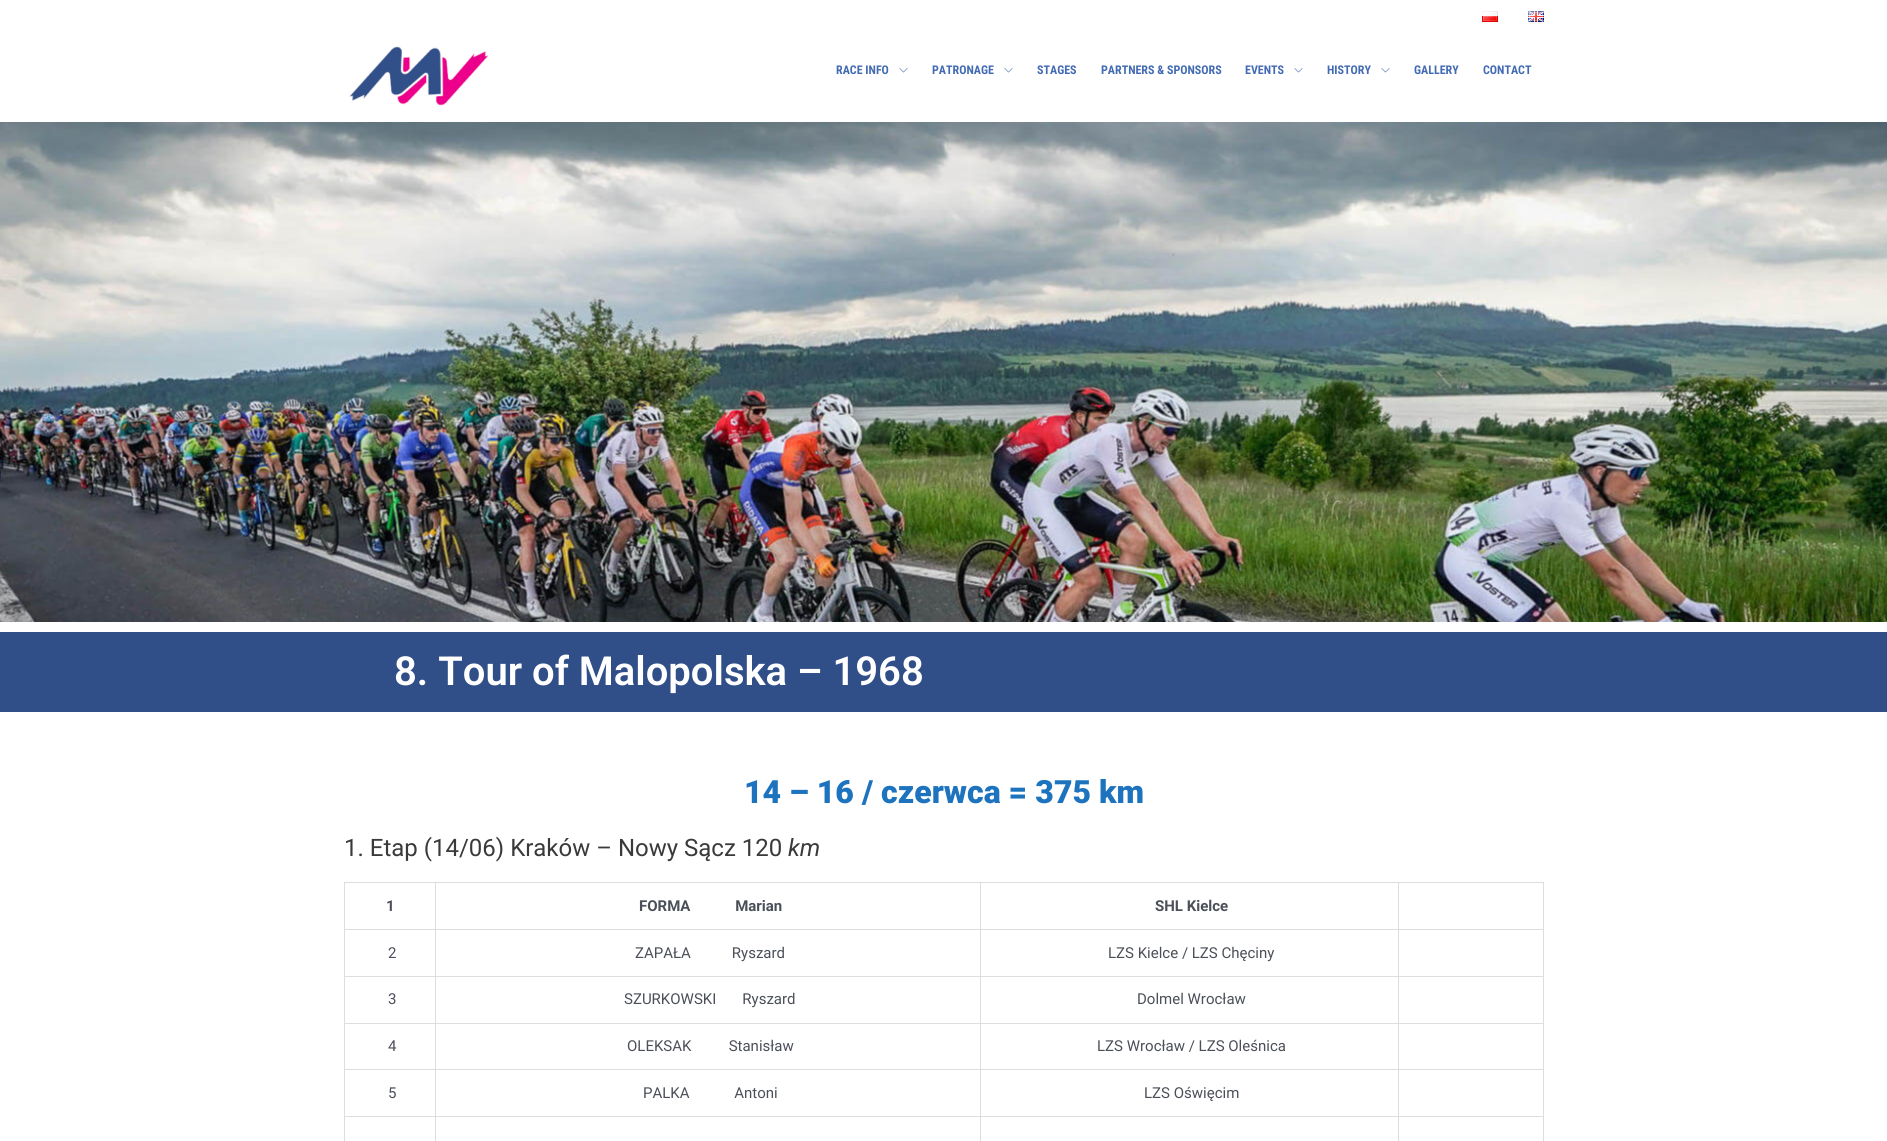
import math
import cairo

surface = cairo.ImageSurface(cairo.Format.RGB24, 1887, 1141)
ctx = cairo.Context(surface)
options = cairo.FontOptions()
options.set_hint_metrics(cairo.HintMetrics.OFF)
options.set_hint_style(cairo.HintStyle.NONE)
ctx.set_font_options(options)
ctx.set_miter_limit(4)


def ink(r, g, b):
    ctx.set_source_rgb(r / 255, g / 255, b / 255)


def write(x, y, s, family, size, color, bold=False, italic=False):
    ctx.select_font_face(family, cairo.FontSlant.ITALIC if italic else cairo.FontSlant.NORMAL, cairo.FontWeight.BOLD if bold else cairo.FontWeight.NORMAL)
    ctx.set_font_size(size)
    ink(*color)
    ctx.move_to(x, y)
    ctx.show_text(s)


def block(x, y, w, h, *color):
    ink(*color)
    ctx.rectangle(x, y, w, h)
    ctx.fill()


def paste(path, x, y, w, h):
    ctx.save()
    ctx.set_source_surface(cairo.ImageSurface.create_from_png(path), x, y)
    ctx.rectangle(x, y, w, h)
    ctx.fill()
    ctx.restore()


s1 = dict(family="Roboto Condensed", size=12, color=(67, 107, 179), bold=True)
s2 = dict(family="Roboto SemiBold", size=40, color=(255, 255, 255))
s3 = dict(family="Roboto Black", size=32, color=(30, 115, 190))
s4 = dict(family="Roboto", size=24, color=(58, 58, 58))
s5 = dict(family="Roboto", size=24, color=(58, 58, 58), italic=True)
s6 = dict(family="Roboto", size=15, color=(75, 79, 88), bold=True)
s7 = dict(family="Roboto", size=15, color=(75, 79, 88))

ink(255, 255, 255)
ctx.paint()
paste("pic1.png", 1482, 11, 16, 11)
paste("pic2.png", 1528, 11, 16, 11)
paste("pic3.png", 349, 46, 140, 60)
write(836, 74, "RACE INFO", **s1)
paste("pic4.png", 899, 68, 9, 5)
write(932, 74, "PATRONAGE", **s1)
paste("pic4.png", 1004, 68, 9, 5)
write(1037, 74, "STAGES", **s1)
write(1101, 74, "PARTNERS & SPONSORS", **s1)
write(1245, 74, "EVENTS", **s1)
paste("pic4.png", 1294, 68, 9, 5)
write(1327, 74, "HISTORY", **s1)
paste("pic4.png", 1381, 68, 9, 5)
write(1414, 74, "GALLERY", **s1)
write(1483, 74, "CONTACT", **s1)
paste("pic5.png", 0, 122, 1887, 500)
block(0, 632, 1887, 80, 48, 78, 136)
write(394, 685, "8. Tour of Malopolska – 1968", **s2)
write(744, 803, "14 – 16 / czerwca = 375 km", **s3)
write(344, 856, "1. Etap (14/06) Kraków – Nowy Sącz 120", **s4)
write(788, 856, "km", **s5)
block(344, 882, 1200, 1, 221, 221, 221)
block(344, 882, 1, 259, 221, 221, 221)
block(435, 883, 1, 258, 221, 221, 221)
block(345, 929, 91, 1, 221, 221, 221)
write(386, 911, "1", **s6)
block(980, 883, 1, 258, 221, 221, 221)
block(436, 929, 545, 1, 221, 221, 221)
write(639, 911, "FORMA            Marian", **s6)
block(1398, 883, 1, 258, 221, 221, 221)
block(981, 929, 418, 1, 221, 221, 221)
write(1155, 911, "SHL Kielce", **s6)
block(1543, 883, 1, 258, 221, 221, 221)
block(1399, 929, 145, 1, 221, 221, 221)
block(345, 976, 1199, 1, 221, 221, 221)
write(388, 958, "2", **s7)
write(635, 958, "ZAPAŁA           Ryszard", **s7)
write(1108, 958, "LZS Kielce / LZS Chęciny", **s7)
block(345, 1023, 1199, 1, 221, 221, 221)
write(388, 1004, "3", **s7)
write(624, 1004, "SZURKOWSKI       Ryszard", **s7)
write(1137, 1004, "Dolmel Wrocław", **s7)
block(345, 1069, 1199, 1, 221, 221, 221)
write(388, 1051, "4", **s7)
write(627, 1051, "OLEKSAK          Stanisław", **s7)
write(1097, 1051, "LZS Wrocław / LZS Oleśnica", **s7)
block(345, 1116, 1199, 1, 221, 221, 221)
write(388, 1098, "5", **s7)
write(643, 1098, "PALKA            Antoni", **s7)
write(1144, 1098, "LZS Oświęcim", **s7)
surface.write_to_png("screenshot.png")
